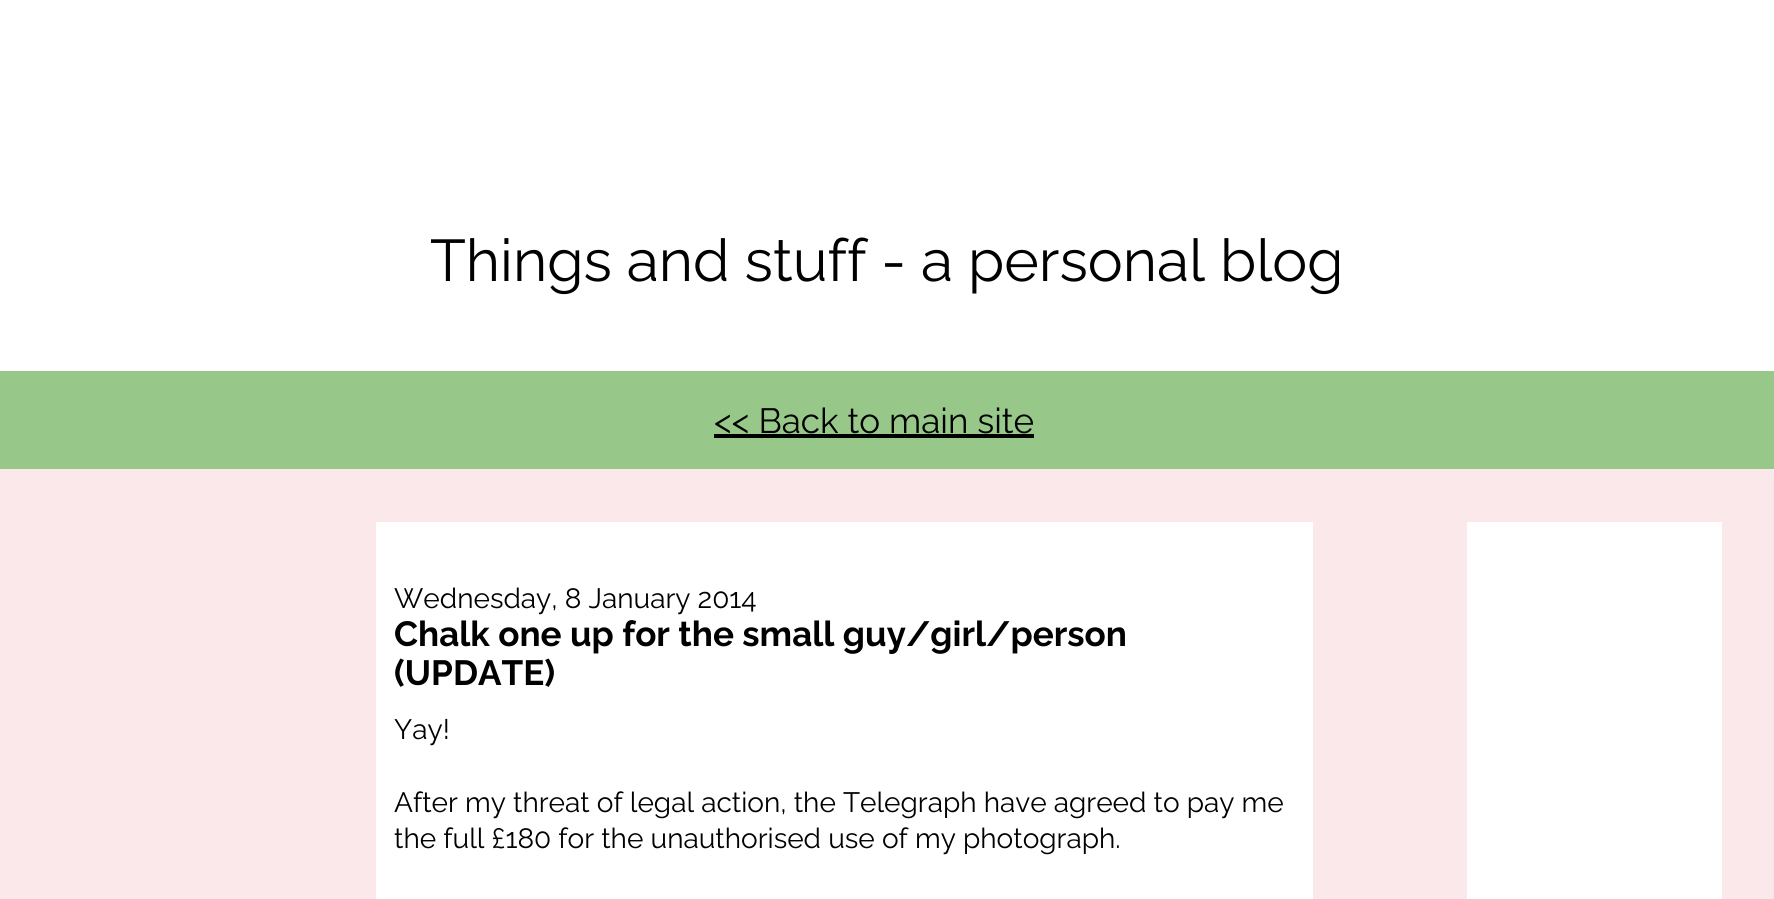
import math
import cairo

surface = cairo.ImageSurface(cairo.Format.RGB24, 1774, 899)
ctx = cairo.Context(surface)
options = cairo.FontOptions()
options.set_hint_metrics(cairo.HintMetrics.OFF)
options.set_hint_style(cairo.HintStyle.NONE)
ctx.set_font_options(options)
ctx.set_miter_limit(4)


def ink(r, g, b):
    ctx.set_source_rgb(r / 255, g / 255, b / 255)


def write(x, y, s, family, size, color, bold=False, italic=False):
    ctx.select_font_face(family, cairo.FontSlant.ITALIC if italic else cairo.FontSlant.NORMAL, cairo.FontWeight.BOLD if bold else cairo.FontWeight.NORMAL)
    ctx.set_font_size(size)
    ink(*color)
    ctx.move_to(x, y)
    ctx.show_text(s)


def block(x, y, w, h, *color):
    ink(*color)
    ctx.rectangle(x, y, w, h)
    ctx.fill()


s1 = dict(family="Raleway", size=58.75, color=(0, 0, 0))
s2 = dict(family="Raleway", size=35, color=(0, 0, 0))
s3 = dict(family="Raleway", size=28, color=(0, 0, 0))
s4 = dict(family="Raleway", size=35, color=(0, 0, 0), bold=True)

ink(251, 232, 234)
ctx.paint()
block(0, 0, 1774, 371, 255, 255, 255)
write(430, 281, "Things and stuff - a personal blog", **s1)
block(0, 371, 1774, 98, 151, 200, 138)
write(714, 433, "<< Back to main site", **s2)
block(714, 434, 320, 4, 0, 0, 0)
block(376, 522, 937, 377, 255, 255, 255)
write(394, 608, "Wednesday, 8 January 2014", **s3)
write(394, 646, "Chalk one up for the small guy/girl/person", **s4)
write(394, 685, "(UPDATE)", **s4)
write(394, 739, "Yay!", **s3)
write(394, 812, "After my threat of legal action, the Telegraph have agreed to pay me", **s3)
write(394, 848, "the full £180 for the unauthorised use of my photograph.", **s3)
block(1467, 522, 255, 377, 255, 255, 255)
surface.write_to_png("screenshot.png")
